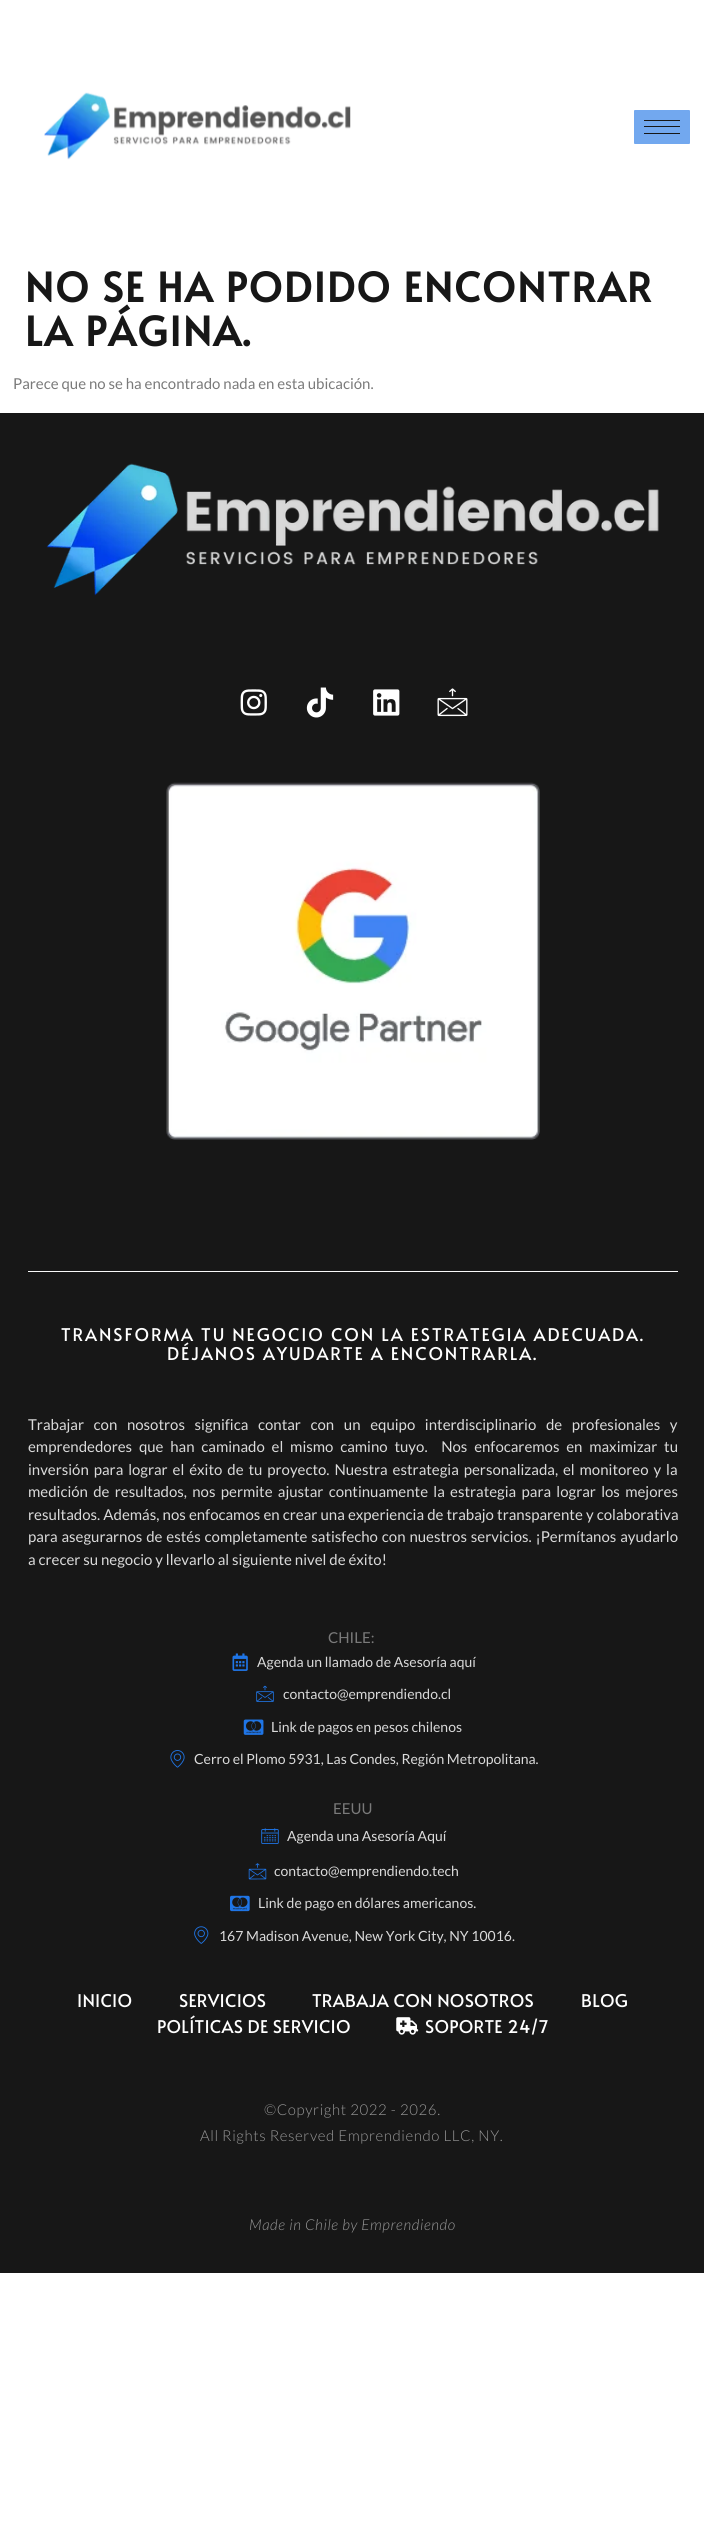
import math
import cairo

surface = cairo.ImageSurface(cairo.Format.RGB24, 704, 2544)
ctx = cairo.Context(surface)
options = cairo.FontOptions()
options.set_hint_metrics(cairo.HintMetrics.OFF)
options.set_hint_style(cairo.HintStyle.NONE)
ctx.set_font_options(options)
ctx.set_miter_limit(4)


def ink(r, g, b):
    ctx.set_source_rgb(r / 255, g / 255, b / 255)


def write(x, y, s, family, size, color, bold=False, italic=False):
    ctx.select_font_face(family, cairo.FontSlant.ITALIC if italic else cairo.FontSlant.NORMAL, cairo.FontWeight.BOLD if bold else cairo.FontWeight.NORMAL)
    ctx.set_font_size(size)
    ink(*color)
    ctx.move_to(x, y)
    ctx.show_text(s)


def write_spaced(x, y, s, letter, word):
    ctx.move_to(x, y)
    for ch in s:
        ctx.show_text(ch)
        ctx.rel_move_to(letter + word * (ch == ' '), 0)


def block(x, y, w, h, *color):
    ink(*color)
    ctx.rectangle(x, y, w, h)
    ctx.fill()


def round_path(x, y, w, h, r):
    ctx.new_sub_path()
    for i, (u, v) in enumerate([(x + w - r, y + h - r), (x + r, y + h - r), (x + r, y + r), (x + w - r, y + r)]):
        ctx.arc(u, v, r, i * math.pi / 2, (i + 1) * math.pi / 2)
    ctx.close_path()


def paste(path, x, y, w, h):
    ctx.save()
    ctx.set_source_surface(cairo.ImageSurface.create_from_png(path), x, y)
    ctx.rectangle(x, y, w, h)
    ctx.fill()
    ctx.restore()


s1 = dict(family="Lato", size=15, color=(122, 122, 122))
s2 = dict(family="Lato", size=15, color=(218, 218, 218))
s3 = dict(family="Lato", size=14, color=(218, 218, 218))

ink(255, 255, 255)
ctx.paint()
paste("pic1.png", 44, 92, 307, 68)
ink(114, 168, 239)
round_path(634, 110, 56, 34, 1)
ctx.fill()
block(644, 120, 36, 1, 23, 23, 23)
block(644, 126, 36, 1, 23, 23, 23)
block(644, 133, 36, 1, 23, 23, 23)
ctx.select_font_face("Alata", cairo.FontSlant.NORMAL, cairo.FontWeight.BOLD)
ctx.set_font_size(40)
write_spaced(25, 302, "NO SE HA PODIDO ENCONTRAR", 1.9, 0)
write_spaced(25, 346, "LA PÁGINA.", 1.9, 0)
write(13, 389, "Parece que no se ha encontrado nada en esta ubicación.", **s1)
block(0, 413, 704, 1860, 23, 23, 23)
paste("pic2.png", 46, 463, 613, 133)
paste("pic3.png", 240, 689, 27, 27)
paste("pic4.png", 306, 687, 28, 31)
paste("pic5.png", 373, 689, 27, 27)
paste("pic6.png", 437, 688, 31, 29)
paste("pic7.png", 166, 782, 374, 358)
block(28, 1271, 650, 1, 249, 249, 249)
ctx.select_font_face("Alata")
ctx.set_font_size(17.5)
ink(255, 255, 255)
write_spaced(61, 1341, "TRANSFORMA TU NEGOCIO CON LA ESTRATEGIA ADECUADA.", 1.9, 0)
write_spaced(167, 1360, "DÉJANOS AYUDARTE A ENCONTRARLA.", 1.9, 0)
ctx.select_font_face("Lato")
ctx.set_font_size(15)
ink(218, 218, 218)
write_spaced(28, 1430, "Trabajar con nosotros significa contar con un equipo interdisciplinario de profesionales y", 0, 6.75)
write_spaced(28, 1452, "emprendedores que han caminado el mismo camino tuyo.  Nos enfocaremos en maximizar tu", 0, 3.9)
write_spaced(28, 1475, "inversión para lograr el éxito de tu proyecto. Nuestra estrategia personalizada, el monitoreo y la", 0, 2)
write_spaced(28, 1497, "medición de resultados, nos permite ajustar continuamente la estrategia para lograr los mejores", 0, 2.4)
write_spaced(28, 1520, "resultados. Además, nos enfocamos en crear una experiencia de trabajo transparente y colaborativa", 0, 0.25)
write_spaced(28, 1542, "para asegurarnos de estés completamente satisfecho con nuestros servicios. ¡Permítanos ayudarlo", 0, 1)
write(28, 1565, "a crecer su negocio y llevarlo al siguiente nivel de éxito!", **s2)
write(328, 1643, "CHILE:", **s1)
paste("pic8.png", 232, 1653, 16, 18)
write(257, 1667, "Agenda un llamado de Asesoría aquí", **s3)
paste("pic9.png", 256, 1685, 18, 17)
write(283, 1699, "contacto@emprendiendo.cl", **s3)
paste("pic10.png", 243, 1719, 21, 16)
write(271, 1732, "Link de pagos en pesos chilenos", **s3)
paste("pic11.png", 170, 1750, 15, 18)
write(194, 1764, "Cerro el Plomo 5931, Las Condes, Región Metropolitana.", **s3)
write(333, 1814, "EEUU", **s1)
paste("pic12.png", 261, 1828, 18, 16)
write(287, 1841, "Agenda una Asesoría Aquí", **s3)
paste("pic13.png", 248, 1863, 19, 17)
write(274, 1876, "contacto@emprendiendo.tech", **s3)
paste("pic14.png", 230, 1895, 20, 17)
write(258, 1908, "Link de pago en dólares americanos.", **s3)
paste("pic15.png", 194, 1926, 15, 18)
write(219, 1941, "167 Madison Avenue, New York City, NY 10016.", **s3)
ctx.select_font_face("Alata")
ctx.set_font_size(17.5)
ink(255, 255, 255)
write_spaced(77, 2007, "INICIO", 0.25, 0)
write_spaced(179, 2007, "SERVICIOS", 0.25, 0)
write_spaced(312, 2007, "TRABAJA CON NOSOTROS", 0.25, 0)
write_spaced(581, 2007, "BLOG", 0.25, 0)
write_spaced(157, 2033, "POLÍTICAS DE SERVICIO", 0.25, 0)
paste("pic16.png", 396, 2017, 23, 18)
write_spaced(425, 2033, "SOPORTE 24/7", 0.25, 0)
ctx.select_font_face("Lato Light")
ctx.set_font_size(15)
ink(152, 152, 152)
write_spaced(264, 2115, "©Copyright 2022 - 2026.", 0.6, 0)
write_spaced(200, 2141, "All Rights Reserved Emprendiendo LLC, NY.", 0.6, 0)
ctx.select_font_face("Lato Light", cairo.FontSlant.ITALIC)
write_spaced(249, 2230, "Made in Chile by Emprendiendo", 0.6, 0)
surface.write_to_png("screenshot.png")
